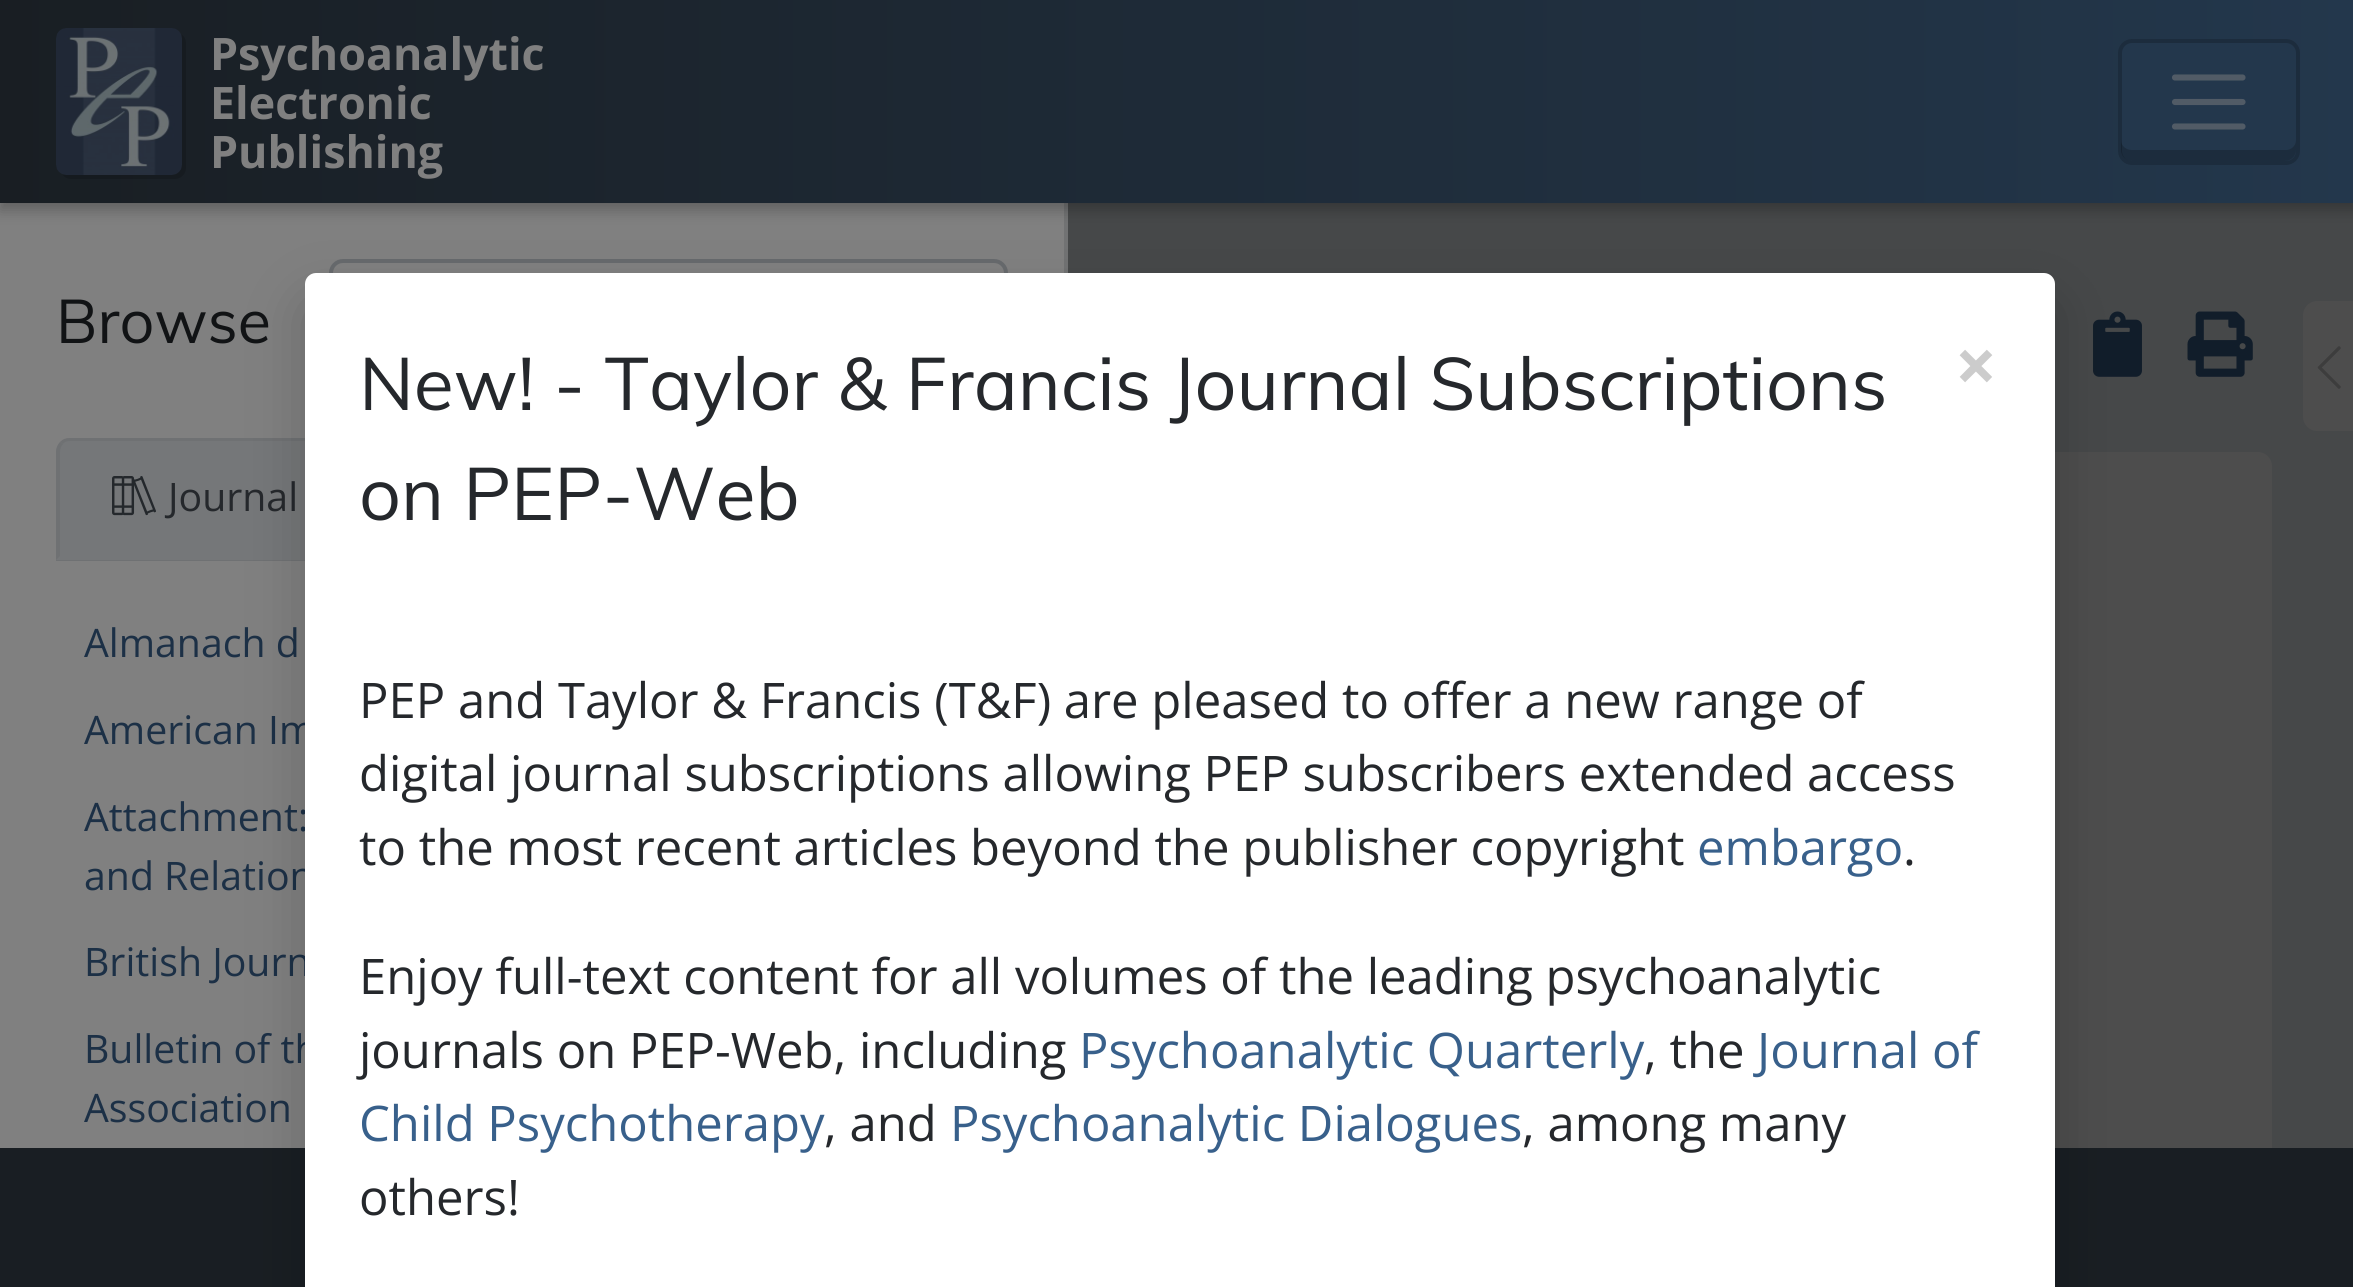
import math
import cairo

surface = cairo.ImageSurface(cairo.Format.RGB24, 2353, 1287)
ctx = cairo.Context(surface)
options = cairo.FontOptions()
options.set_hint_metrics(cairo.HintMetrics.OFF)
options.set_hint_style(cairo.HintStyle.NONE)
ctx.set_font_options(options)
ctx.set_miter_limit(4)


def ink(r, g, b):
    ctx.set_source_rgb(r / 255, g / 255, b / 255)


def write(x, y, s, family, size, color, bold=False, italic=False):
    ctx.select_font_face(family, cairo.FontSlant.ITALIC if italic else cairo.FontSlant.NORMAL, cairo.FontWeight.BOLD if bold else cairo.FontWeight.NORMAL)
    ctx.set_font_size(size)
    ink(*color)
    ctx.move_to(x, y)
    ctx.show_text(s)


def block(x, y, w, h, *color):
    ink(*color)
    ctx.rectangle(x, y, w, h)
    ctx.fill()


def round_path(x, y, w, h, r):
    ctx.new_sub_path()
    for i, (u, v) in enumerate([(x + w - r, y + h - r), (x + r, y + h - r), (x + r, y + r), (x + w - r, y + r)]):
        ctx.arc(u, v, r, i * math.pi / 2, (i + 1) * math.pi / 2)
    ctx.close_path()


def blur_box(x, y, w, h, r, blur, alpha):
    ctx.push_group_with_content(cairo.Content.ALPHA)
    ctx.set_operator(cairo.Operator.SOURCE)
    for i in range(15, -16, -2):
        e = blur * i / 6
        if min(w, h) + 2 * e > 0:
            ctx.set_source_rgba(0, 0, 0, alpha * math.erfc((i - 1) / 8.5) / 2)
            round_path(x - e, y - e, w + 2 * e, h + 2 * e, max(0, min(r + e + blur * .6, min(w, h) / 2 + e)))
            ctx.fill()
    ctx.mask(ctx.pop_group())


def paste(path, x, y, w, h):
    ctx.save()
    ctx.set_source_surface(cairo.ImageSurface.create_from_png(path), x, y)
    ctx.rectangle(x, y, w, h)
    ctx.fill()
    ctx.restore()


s1 = dict(family="Open Sans", size=44.75, color=(128, 128, 128), bold=True)
s2 = dict(family="Muli", size=61, color=(17, 19, 21))
s3 = dict(family="Open Sans", size=39.25, color=(37, 40, 44))
s4 = dict(family="Open Sans", size=39.25, color=(28, 48, 70))
s5 = dict(family="Muli", size=73.5, color=(37, 40, 44))
s6 = dict(family="Open Sans", size=73.5, color=(204, 204, 204), bold=True)
s7 = dict(family="Open Sans", size=49, color=(37, 40, 44))
s8 = dict(family="Open Sans", size=49, color=(56, 96, 139))

ink(70, 72, 73)
ctx.paint()
block(1064, 203, 4, 70, 113, 114, 115)
ink(77, 77, 77)
ctx.new_path()
ctx.move_to(98, 452)
ctx.line_to(2258, 452)
ctx.curve_to(2265.5, 452, 2272, 458.5, 2272, 466)
ctx.line_to(2272, 1148)
ctx.line_to(84, 1148)
ctx.line_to(84, 466)
ctx.curve_to(84, 458.5, 90.5, 452, 98, 452)
ctx.close_path()
ctx.fill()
block(0, 203, 1064, 945, 128, 128, 128)
ink(0, 0, 0)
blur_box(0, 7, 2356, 203, 0, 7, 0.25)
gradient = cairo.LinearGradient(0, 102, 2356, 101)
gradient.add_color_stop_rgba(0, 0.098, 0.118, 0.137, 1)
gradient.add_color_stop_rgba(1, 0.137, 0.216, 0.298, 1)
ctx.set_source(gradient)
ctx.rectangle(0, 0, 2353, 203)
ctx.fill()
ctx.set_source_rgba(0, 0, 0, 0.15)
ctx.new_path()
ctx.move_to(62, 174)
ctx.curve_to(64, 177, 67, 179, 71, 179)
ctx.line_to(175, 179)
ctx.curve_to(181, 179, 186, 174, 186, 168)
ctx.line_to(186, 43)
ctx.curve_to(186, 39, 184, 36, 181, 34)
ctx.curve_to(182, 35, 182, 37, 182, 38)
ctx.line_to(182, 164)
ctx.curve_to(182, 170, 177, 175, 172, 175)
ctx.line_to(66, 175)
ctx.curve_to(65, 175, 63, 175, 62, 174)
ctx.close_path()
ctx.fill()
paste("pic1.png", 56, 28, 126, 147)
write(210, 70, "Psychoanalytic", **s1)
write(210, 119, "Electronic", **s1)
write(210, 168, "Publishing", **s1)
ink(35, 55, 76)
round_path(2118, 39, 182, 126, 14)
ctx.fill()
ink(28, 44, 61)
ctx.new_path()
ctx.move_to(2121, 140)
ctx.line_to(2121, 150)
ctx.curve_to(2121, 156, 2126, 161, 2132, 161)
ctx.line_to(2285, 161)
ctx.curve_to(2291, 161, 2296, 156, 2296, 150)
ctx.line_to(2296, 140)
ctx.curve_to(2296, 146, 2291, 150, 2286, 150)
ctx.line_to(2132, 150)
ctx.curve_to(2126, 150, 2121, 146, 2121, 140)
ctx.close_path()
ctx.fill()
round_path(2120, 41, 178, 122, 12)
ctx.set_source_rgba(0, 0, 0, 0.2)
ctx.set_line_width(4)
ctx.stroke()
ctx.new_path()
ctx.move_to(2175, 77.5)
ctx.line_to(2242.5, 77.5)
ctx.move_to(2175, 102)
ctx.line_to(2242.5, 102)
ctx.move_to(2175, 126.5)
ctx.line_to(2242.5, 126.5)
ink(81, 91, 102)
ctx.set_line_width(6.1)
ctx.set_line_cap(cairo.LineCap.ROUND)
ctx.stroke()
write(56, 343, "Browse", **s2)
round_path(331, 261, 675, 119, 12)
ink(103, 106, 109)
ctx.set_line_width(4)
ctx.set_line_cap(cairo.LineCap.BUTT)
ctx.stroke()
block(56, 560, 249, 1, 111, 113, 115)
ink(117, 119, 121)
ctx.new_path()
ctx.move_to(70, 438)
ctx.line_to(361, 438)
ctx.curve_to(368.5, 438, 375, 444.5, 375, 452)
ctx.line_to(375, 560)
ctx.line_to(56, 560)
ctx.line_to(56, 452)
ctx.curve_to(56, 444.5, 62.5, 438, 70, 438)
ctx.close_path()
ctx.fill()
ink(111, 113, 115)
ctx.new_path()
ctx.move_to(70, 438)
ctx.curve_to(66, 438, 63, 439, 60, 442)
ctx.line_to(63, 444)
ctx.curve_to(64, 442, 67, 441, 70, 441)
ctx.line_to(360, 441)
ctx.curve_to(363, 441, 366, 442, 368, 444)
ctx.line_to(370, 442)
ctx.curve_to(368, 440, 364, 438, 360, 438)
ctx.close_path()
ctx.fill()
ctx.new_path()
ctx.move_to(56, 560)
ctx.line_to(60, 556)
ctx.line_to(60, 452)
ctx.curve_to(60, 449, 61, 446, 63, 444)
ctx.line_to(60, 442)
ctx.curve_to(58, 444, 56, 448, 56, 452)
ctx.close_path()
ctx.fill()
paste("pic2.png", 112, 476, 44, 40)
write(168, 511, "Journal", **s3)
write(84, 657, "Almanach d", **s4)
write(84, 744, "American Im", **s4)
write(84, 831, "Attachment:", **s4)
write(84, 890, "and Relation", **s4)
write(84, 976, "British Journ", **s4)
write(84, 1063, "Bulletin of th", **s4)
write(84, 1122, "Association", **s4)
ink(77, 77, 77)
ctx.new_path()
ctx.move_to(2317, 301)
ctx.line_to(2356, 301)
ctx.line_to(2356, 431)
ctx.line_to(2317, 431)
ctx.curve_to(2309.5, 431, 2303, 424.5, 2303, 417)
ctx.line_to(2303, 315)
ctx.curve_to(2303, 307.5, 2309.5, 301, 2317, 301)
ctx.close_path()
ctx.fill()
paste("pic3.png", 2317, 346, 24, 43)
paste("pic4.png", 2093, 311, 49, 66)
paste("pic5.png", 2187, 311, 66, 66)
block(0, 1148, 2353, 139, 25, 30, 35)
ink(0, 0, 0)
blur_box(305, 301, 1750, 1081, 11, 28, 0.2)
ink(255, 255, 255)
ctx.new_path()
ctx.move_to(316, 273)
ctx.line_to(2044, 273)
ctx.curve_to(2050, 273, 2055, 278, 2055, 284)
ctx.line_to(2055, 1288)
ctx.line_to(305, 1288)
ctx.line_to(305, 284)
ctx.curve_to(305, 278, 310, 273, 316, 273)
ctx.close_path()
ctx.fill()
write(359, 410, "New! - Taylor & Francis Journal Subscriptions", **s5)
write(359, 520, "on PEP-Web", **s5)
write(1955, 392, "×", **s6)
write(359, 718, "PEP and Taylor & Francis (T&F) are pleased to offer a new range of", **s7)
write(359, 791, "digital journal subscriptions allowing PEP subscribers extended access", **s7)
write(359, 865, "to the most recent articles beyond the publisher copyright", **s7)
write(1697, 865, "embargo", **s8)
write(1903, 865, ".", **s7)
write(359, 994, "Enjoy full-text content for all volumes of the leading psychoanalytic", **s7)
write(359, 1068, "journals on PEP-Web, including", **s7)
write(1079, 1068, "Psychoanalytic Quarterly", **s8)
write(1644, 1068, ", the", **s7)
write(1757, 1068, "Journal of", **s8)
write(359, 1141, "Child Psychotherapy", **s8)
write(824, 1141, ", and", **s7)
write(950, 1141, "Psychoanalytic Dialogues", **s8)
write(1522, 1141, ", among many", **s7)
write(359, 1215, "others!", **s7)
surface.write_to_png("screenshot.png")
